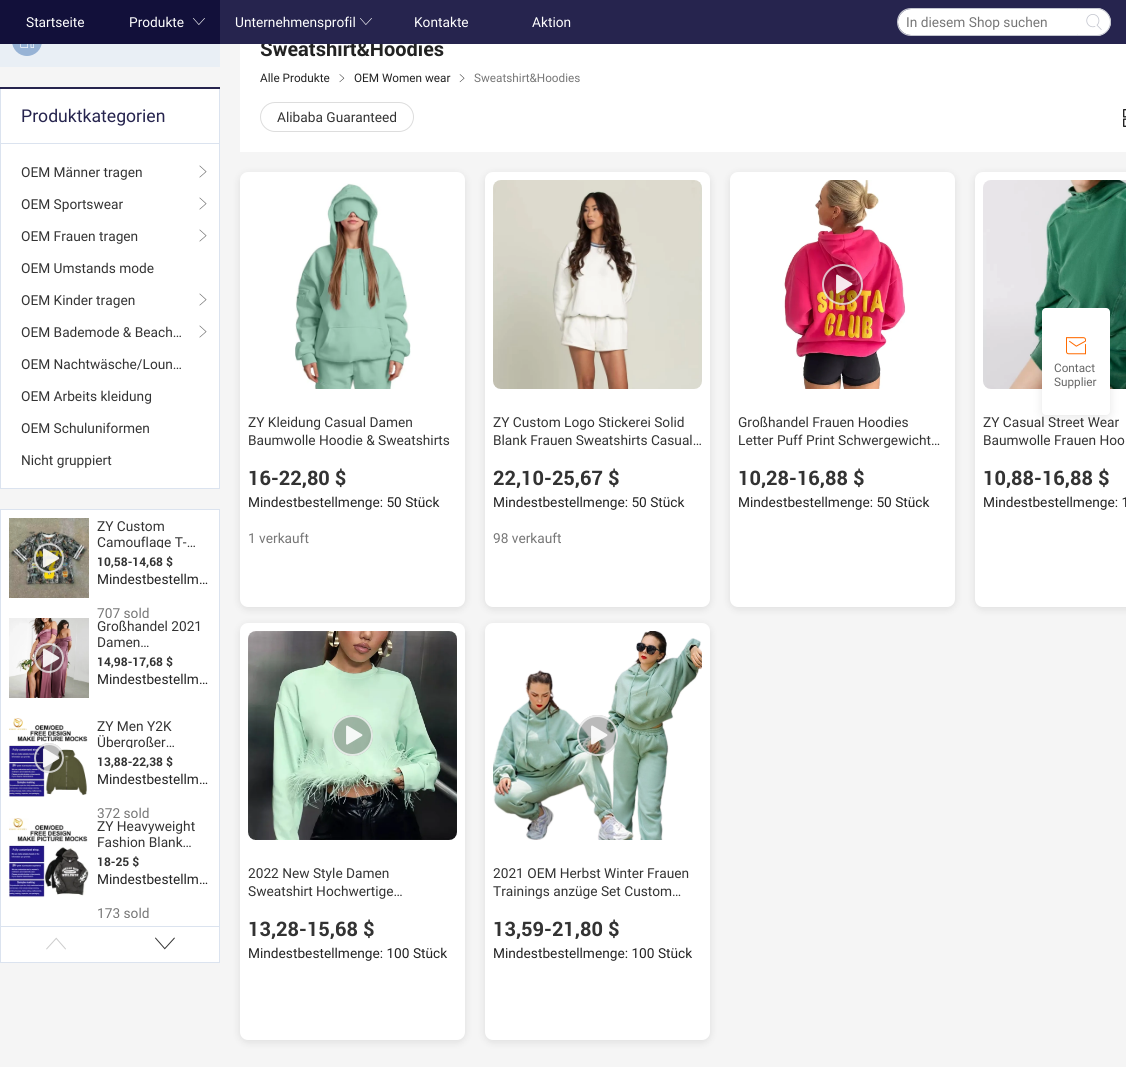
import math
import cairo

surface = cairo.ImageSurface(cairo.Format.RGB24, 1126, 1067)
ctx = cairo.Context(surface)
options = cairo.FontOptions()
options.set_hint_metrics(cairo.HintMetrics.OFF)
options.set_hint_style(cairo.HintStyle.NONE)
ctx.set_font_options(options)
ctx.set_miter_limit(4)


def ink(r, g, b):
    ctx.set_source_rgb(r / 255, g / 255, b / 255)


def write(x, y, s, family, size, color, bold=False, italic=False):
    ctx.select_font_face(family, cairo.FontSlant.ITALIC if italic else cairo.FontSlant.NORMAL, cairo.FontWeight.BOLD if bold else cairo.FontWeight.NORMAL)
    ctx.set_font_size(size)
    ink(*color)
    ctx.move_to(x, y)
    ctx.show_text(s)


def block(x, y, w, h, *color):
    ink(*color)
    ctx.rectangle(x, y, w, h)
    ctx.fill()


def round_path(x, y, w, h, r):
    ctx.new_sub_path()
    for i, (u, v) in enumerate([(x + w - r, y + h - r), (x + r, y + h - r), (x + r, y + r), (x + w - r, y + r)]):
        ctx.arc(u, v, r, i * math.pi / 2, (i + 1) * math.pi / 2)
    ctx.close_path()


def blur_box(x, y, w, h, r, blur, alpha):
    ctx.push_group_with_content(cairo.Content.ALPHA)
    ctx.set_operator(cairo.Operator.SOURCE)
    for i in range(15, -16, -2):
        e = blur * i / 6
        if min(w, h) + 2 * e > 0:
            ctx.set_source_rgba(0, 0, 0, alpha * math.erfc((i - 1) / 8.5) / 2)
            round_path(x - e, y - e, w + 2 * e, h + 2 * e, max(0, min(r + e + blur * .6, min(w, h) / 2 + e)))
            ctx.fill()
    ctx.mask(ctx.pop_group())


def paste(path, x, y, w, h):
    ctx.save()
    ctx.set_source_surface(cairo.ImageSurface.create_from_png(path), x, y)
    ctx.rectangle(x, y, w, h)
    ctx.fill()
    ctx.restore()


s1 = dict(family="Roboto", size=20, color=(34, 34, 34), bold=True)
s2 = dict(family="Roboto", size=14, color=(255, 255, 255))
s3 = dict(family="Roboto", size=14, color=(118, 118, 118))
s4 = dict(family="Roboto", size=18, color=(38, 36, 78))
s5 = dict(family="Roboto", size=14, color=(51, 51, 51))
s6 = dict(family="Roboto", size=12, color=(51, 51, 51), bold=True)
s7 = dict(family="Roboto", size=14, color=(34, 34, 34))
s8 = dict(family="Roboto", size=12, color=(34, 34, 34))
s9 = dict(family="Roboto", size=12, color=(118, 118, 118))
s10 = dict(family="Roboto", size=20, color=(51, 51, 51), bold=True)
s11 = dict(family="Roboto", size=12, color=(102, 102, 102))

ink(245, 245, 245)
ctx.paint()
block(240, 44, 886, 108, 255, 255, 255)
write(260, 56, "Sweatshirt&Hoodies", **s1)
block(220, 0, 906, 44, 38, 36, 78)
block(0, 44, 220, 23, 233, 239, 245)
ink(151, 179, 213)
ctx.new_path()
ctx.arc(27, 41, 15, 0, 2 * math.pi)
ctx.fill()
block(0, 0, 220, 44, 18, 16, 58)
write(26, 27, "Startseite", **s2)
write(129, 27, "Produkte", **s2)
paste("pic1.png", 193, 18, 12, 7)
write(235, 27, "Unternehmensprofil", **s2)
paste("pic2.png", 360, 18, 12, 7)
write(414, 27, "Kontakte", **s2)
write(532, 27, "Aktion", **s2)
ink(196, 198, 207)
ctx.set_fill_rule(cairo.FillRule.EVEN_ODD)
ctx.new_path()
ctx.move_to(911, 8)
ctx.line_to(1078, 8)
ctx.line_to(1078, 36)
ctx.line_to(911, 36)
ctx.curve_to(903, 36, 897, 30, 897, 22)
ctx.curve_to(897, 14, 903, 8, 911, 8)
ctx.close_path()
ctx.move_to(911, 9)
ctx.line_to(1078, 9)
ctx.line_to(1078, 35)
ctx.line_to(911, 35)
ctx.curve_to(904, 35, 898, 29, 898, 22)
ctx.curve_to(898, 15, 904, 9, 911, 9)
ctx.close_path()
ctx.fill()
ink(255, 255, 255)
ctx.new_path()
ctx.move_to(911, 9)
ctx.line_to(1077.5, 9)
ctx.curve_to(1078, 9, 1078, 9, 1078, 9.5)
ctx.line_to(1078, 34.5)
ctx.curve_to(1078, 35, 1078, 35, 1077.5, 35)
ctx.line_to(911, 35)
ctx.curve_to(904, 35, 898, 29, 898, 22)
ctx.curve_to(898, 15, 904, 9, 911, 9)
ctx.close_path()
ctx.fill()
write(906, 27, "In diesem Shop suchen", **s3)
ink(255, 255, 255)
ctx.new_path()
ctx.move_to(1078, 8)
ctx.line_to(1097, 8)
ctx.curve_to(1104.5, 8, 1111, 14.5, 1111, 22)
ctx.curve_to(1111, 29.5, 1104.5, 36, 1097, 36)
ctx.line_to(1078, 36)
ctx.close_path()
ctx.fill()
ink(196, 198, 207)
ctx.new_path()
ctx.move_to(1078, 8)
ctx.line_to(1097, 8)
ctx.curve_to(1104.5, 8, 1111, 14.5, 1111, 22)
ctx.curve_to(1111, 29.5, 1104.5, 36, 1097, 36)
ctx.line_to(1078, 36)
ctx.close_path()
ctx.move_to(1078, 9)
ctx.line_to(1097, 9)
ctx.curve_to(1104, 9, 1110, 15, 1110, 22)
ctx.curve_to(1110, 29, 1104, 35, 1097, 35)
ctx.line_to(1078, 35)
ctx.close_path()
ctx.fill()
paste("pic3.png", 1086, 14, 16, 16)
paste("pic4.png", 20, 44, 14, 4)
block(1, 89, 218, 399, 255, 255, 255)
block(0, 87, 220, 2, 38, 36, 78)
block(219, 89, 1, 400, 219, 227, 239)
block(0, 488, 220, 1, 219, 227, 239)
block(0, 89, 1, 400, 219, 227, 239)
block(1, 143, 218, 1, 219, 227, 239)
write(21, 122, "Produktkategorien", **s4)
write(21, 177, "OEM Männer tragen", **s5)
paste("pic5.png", 199, 165, 8, 13)
write(21, 209, "OEM Sportswear", **s5)
paste("pic5.png", 199, 197, 8, 13)
write(21, 241, "OEM Frauen tragen", **s5)
paste("pic5.png", 199, 229, 8, 13)
write(21, 273, "OEM Umstands mode", **s5)
write(21, 305, "OEM Kinder tragen", **s5)
paste("pic5.png", 199, 293, 8, 13)
write(21, 337, "OEM Bademode & Beach…", **s5)
paste("pic5.png", 199, 325, 8, 13)
write(21, 369, "OEM Nachtwäsche/Loun…", **s5)
write(21, 401, "OEM Arbeits kleidung", **s5)
write(21, 433, "OEM Schuluniformen", **s5)
write(21, 465, "Nicht gruppiert", **s5)
ink(255, 255, 255)
ctx.rectangle(0.5, 509.5, 219, 453)
ctx.fill_preserve()
ink(219, 227, 239)
ctx.set_line_width(1)
ctx.stroke()
paste("pic6.png", 9, 518, 80, 80)
ctx.set_source_rgba(0, 0, 0, 0.27)
ctx.arc(49, 558, 15, 0, 2 * math.pi)
ctx.fill()
ctx.arc(49, 558, 14, 0, 2 * math.pi)
ctx.set_source_rgba(1, 1, 1, 0.72)
ctx.set_line_width(2)
ctx.stroke()
paste("pic7.png", 42, 548, 18, 20)
write(97, 531, "ZY Custom", **s5)
ctx.save()
ctx.set_fill_rule(cairo.FillRule.WINDING)
ctx.rectangle(97, 518, 114, 30)
ctx.clip()
write(97, 547, "Camouflage T-…", **s5)
ctx.restore()
write(97, 566, "10,58-14,68 $", **s6)
write(97, 584, "Mindestbestellm…", **s7)
ctx.save()
ctx.set_fill_rule(cairo.FillRule.WINDING)
ctx.rectangle(97, 518, 114, 100)
ctx.clip()
write(97, 618, "707 sold", **s3)
ctx.restore()
paste("pic8.png", 9, 618, 80, 80)
ctx.set_source_rgba(0, 0, 0, 0.27)
ctx.arc(49, 658, 15, 0, 2 * math.pi)
ctx.fill()
ctx.arc(49, 658, 14, 0, 2 * math.pi)
ctx.set_source_rgba(1, 1, 1, 0.72)
ctx.stroke()
paste("pic9.png", 42, 648, 18, 20)
write(97, 631, "Großhandel 2021", **s5)
write(97, 647, "Damen…", **s5)
write(97, 666, "14,98-17,68 $", **s6)
write(97, 684, "Mindestbestellm…", **s7)
paste("pic10.png", 9, 718, 79, 79)
ctx.set_source_rgba(0, 0, 0, 0.27)
ctx.arc(49, 758, 15, 0, 2 * math.pi)
ctx.fill()
ctx.arc(49, 758, 14, 0, 2 * math.pi)
ctx.set_source_rgba(1, 1, 1, 0.72)
ctx.stroke()
paste("pic11.png", 42, 748, 18, 20)
write(97, 731, "ZY Men Y2K", **s5)
ctx.save()
ctx.set_fill_rule(cairo.FillRule.WINDING)
ctx.rectangle(97, 718, 114, 30)
ctx.clip()
write(97, 747, "Übergroßer…", **s5)
ctx.restore()
write(97, 766, "13,88-22,38 $", **s6)
write(97, 784, "Mindestbestellm…", **s7)
ctx.save()
ctx.set_fill_rule(cairo.FillRule.WINDING)
ctx.rectangle(97, 718, 114, 100)
ctx.clip()
write(97, 818, "372 sold", **s3)
ctx.restore()
paste("pic12.png", 9, 818, 80, 80)
write(97, 831, "ZY Heavyweight", **s5)
write(97, 847, "Fashion Blank…", **s5)
write(97, 866, "18-25 $", **s6)
write(97, 884, "Mindestbestellm…", **s7)
ctx.save()
ctx.set_fill_rule(cairo.FillRule.WINDING)
ctx.rectangle(97, 818, 114, 100)
ctx.clip()
write(97, 918, "173 sold", **s3)
ctx.restore()
block(1, 926, 218, 1, 219, 227, 239)
paste("pic13.png", 46, 937, 20, 13)
paste("pic14.png", 155, 937, 20, 13)
write(260, 82, "Alle Produkte", **s8)
paste("pic15.png", 339, 74, 6, 9)
write(354, 82, "OEM Women wear", **s8)
paste("pic16.png", 459, 74, 6, 9)
write(474, 82, "Sweatshirt&Hoodies", **s9)
round_path(260.5, 102.5, 153, 29, 14.5)
ink(221, 221, 221)
ctx.set_line_width(1)
ctx.stroke()
write(277, 122, "Alibaba Guaranteed", **s5)
paste("pic17.png", 1123, 109, 3, 18)
ink(0, 0, 0)
blur_box(240, 174, 225, 435, 8, 4, 0.1)
ink(255, 255, 255)
round_path(240, 172, 225, 435, 8)
ctx.fill()
paste("pic18.png", 295, 183, 116, 206)
write(248, 427, "ZY Kleidung Casual Damen", **s5)
write(248, 445, "Baumwolle Hoodie & Sweatshirts", **s5)
write(248, 485, "16-22,80 $", **s10)
write(248, 507, "Mindestbestellmenge: 50 Stück", **s7)
write(248, 543, "1 verkauft", **s3)
ink(0, 0, 0)
blur_box(485, 174, 225, 435, 8, 4, 0.1)
ink(255, 255, 255)
round_path(485, 172, 225, 435, 8)
ctx.fill()
paste("pic19.png", 493, 180, 209, 209)
write(493, 427, "ZY Custom Logo Stickerei Solid", **s5)
write(493, 445, "Blank Frauen Sweatshirts Casual…", **s5)
write(493, 485, "22,10-25,67 $", **s10)
write(493, 507, "Mindestbestellmenge: 50 Stück", **s7)
write(493, 543, "98 verkauft", **s3)
ink(0, 0, 0)
blur_box(730, 174, 225, 435, 8, 4, 0.1)
ink(255, 255, 255)
round_path(730, 172, 225, 435, 8)
ctx.fill()
paste("pic20.png", 738, 180, 209, 209)
ctx.set_source_rgba(0, 0, 0, 0.27)
ctx.arc(842.5, 284.5, 20.5, 0, 2 * math.pi)
ctx.fill()
ctx.arc(842.5, 284.5, 19.5, 0, 2 * math.pi)
ctx.set_source_rgba(1, 1, 1, 0.72)
ctx.set_line_width(2)
ctx.stroke()
paste("pic21.png", 836, 274, 17, 20)
write(738, 427, "Großhandel Frauen Hoodies", **s5)
write(738, 445, "Letter Puff Print Schwergewicht…", **s5)
write(738, 485, "10,28-16,88 $", **s10)
write(738, 507, "Mindestbestellmenge: 50 Stück", **s7)
ink(0, 0, 0)
blur_box(975, 174, 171, 435, 8, 4, 0.1)
ink(255, 255, 255)
round_path(975, 172, 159, 435, 8)
ctx.fill()
paste("pic22.png", 983, 180, 143, 209)
write(983, 427, "ZY Casual Street Wear", **s5)
write(983, 445, "Baumwolle Frauen Hoo", **s5)
write(983, 485, "10,88-16,88 $", **s10)
write(983, 507, "Mindestbestellmenge: 1", **s7)
ink(0, 0, 0)
blur_box(240, 625, 225, 417, 8, 4, 0.1)
ink(255, 255, 255)
round_path(240, 623, 225, 417, 8)
ctx.fill()
paste("pic23.png", 248, 631, 209, 209)
ctx.set_source_rgba(0, 0, 0, 0.27)
ctx.arc(352.5, 735.5, 20.5, 0, 2 * math.pi)
ctx.fill()
ctx.arc(352.5, 735.5, 19.5, 0, 2 * math.pi)
ctx.set_source_rgba(1, 1, 1, 0.72)
ctx.stroke()
paste("pic24.png", 346, 725, 17, 20)
write(248, 878, "2022 New Style Damen", **s5)
write(248, 896, "Sweatshirt Hochwertige…", **s5)
write(248, 936, "13,28-15,68 $", **s10)
write(248, 958, "Mindestbestellmenge: 100 Stück", **s7)
ink(0, 0, 0)
blur_box(485, 625, 225, 417, 8, 4, 0.1)
ink(255, 255, 255)
round_path(485, 623, 225, 417, 8)
ctx.fill()
paste("pic25.png", 493, 631, 209, 209)
ctx.set_source_rgba(0, 0, 0, 0.27)
ctx.arc(597.5, 735.5, 20.5, 0, 2 * math.pi)
ctx.fill()
ctx.arc(597.5, 735.5, 19.5, 0, 2 * math.pi)
ctx.set_source_rgba(1, 1, 1, 0.72)
ctx.stroke()
paste("pic26.png", 591, 725, 17, 20)
write(493, 878, "2021 OEM Herbst Winter Frauen", **s5)
write(493, 896, "Trainings anzüge Set Custom…", **s5)
write(493, 936, "13,59-21,80 $", **s10)
write(493, 958, "Mindestbestellmenge: 100 Stück", **s7)
ink(0, 0, 0)
blur_box(1042, 310, 68, 107, 4, 5, 0.1)
ink(255, 255, 255)
round_path(1042, 308, 68, 107, 4)
ctx.fill()
paste("pic27.png", 1066, 337, 20, 18)
write(1054, 372, "Contact", **s11)
write(1054, 386, "Supplier", **s11)
surface.write_to_png("screenshot.png")
